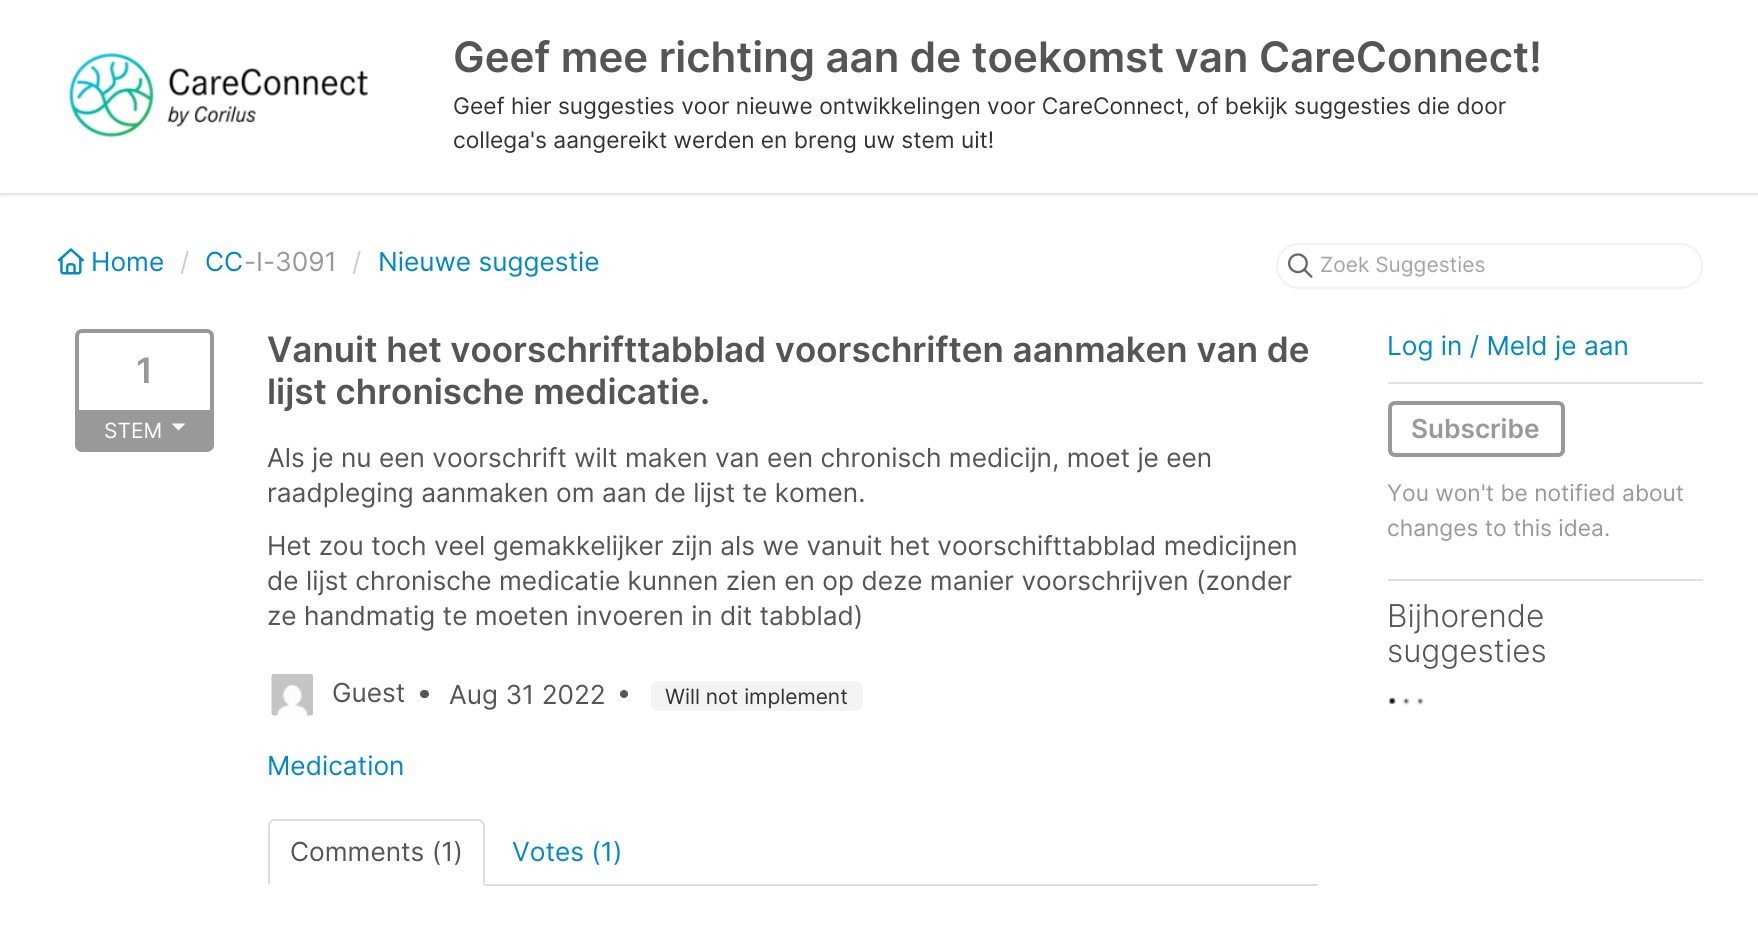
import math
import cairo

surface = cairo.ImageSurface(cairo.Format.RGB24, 1758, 928)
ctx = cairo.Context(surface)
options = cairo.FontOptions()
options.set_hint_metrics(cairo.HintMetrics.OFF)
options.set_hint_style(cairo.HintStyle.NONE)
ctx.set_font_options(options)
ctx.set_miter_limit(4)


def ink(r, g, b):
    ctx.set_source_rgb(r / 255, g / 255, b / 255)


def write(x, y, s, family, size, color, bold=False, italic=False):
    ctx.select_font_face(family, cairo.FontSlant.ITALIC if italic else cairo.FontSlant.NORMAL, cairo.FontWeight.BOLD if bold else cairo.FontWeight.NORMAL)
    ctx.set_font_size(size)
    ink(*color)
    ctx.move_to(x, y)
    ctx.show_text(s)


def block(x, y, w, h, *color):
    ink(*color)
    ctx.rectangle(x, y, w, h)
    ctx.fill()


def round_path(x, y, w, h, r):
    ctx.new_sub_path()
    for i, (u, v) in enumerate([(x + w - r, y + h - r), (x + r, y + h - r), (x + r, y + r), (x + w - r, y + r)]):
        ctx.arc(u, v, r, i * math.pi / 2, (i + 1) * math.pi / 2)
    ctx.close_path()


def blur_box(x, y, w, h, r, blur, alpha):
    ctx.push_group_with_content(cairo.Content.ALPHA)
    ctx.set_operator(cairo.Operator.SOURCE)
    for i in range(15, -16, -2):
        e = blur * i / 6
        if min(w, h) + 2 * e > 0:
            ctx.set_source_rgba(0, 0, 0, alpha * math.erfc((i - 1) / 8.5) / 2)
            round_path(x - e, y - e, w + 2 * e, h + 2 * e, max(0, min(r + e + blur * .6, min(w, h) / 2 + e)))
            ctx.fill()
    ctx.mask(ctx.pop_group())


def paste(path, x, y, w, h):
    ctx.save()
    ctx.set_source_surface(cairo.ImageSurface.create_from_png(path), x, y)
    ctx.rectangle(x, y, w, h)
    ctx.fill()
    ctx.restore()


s1 = dict(family="Inter SemiBold", size=42, color=(85, 85, 85))
s2 = dict(family="Inter", size=22.75, color=(51, 51, 51))
s3 = dict(family="Inter", size=26.25, color=(0, 136, 204))
s4 = dict(family="Inter", size=26.25, color=(204, 204, 204))
s5 = dict(family="Inter", size=26.25, color=(153, 153, 153))
s6 = dict(family="Inter", size=21, color=(165, 165, 165))
s7 = dict(family="Inter SemiBold", size=35, color=(153, 153, 153))
s8 = dict(family="Inter", size=21, color=(255, 255, 255))
s9 = dict(family="Inter SemiBold", size=35, color=(85, 85, 85))
s10 = dict(family="Inter", size=26.25, color=(85, 85, 85))
s11 = dict(family="Inter", size=21, color=(51, 51, 51))
s12 = dict(family="Inter SemiBold", size=26.25, color=(153, 153, 153))
s13 = dict(family="Inter", size=22.75, color=(153, 153, 153))
s14 = dict(family="Inter Light", size=31.5, color=(85, 85, 85))

ink(255, 255, 255)
ctx.paint()
ink(0, 0, 0)
blur_box(0, 2, 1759, 192, 0, 2, 0.2)
block(0, 0, 1758, 193, 255, 255, 255)
paste("pic1.png", 69, 53, 299, 84)
write(453, 72, "Geef mee richting aan de toekomst van CareConnect!", **s1)
write(453, 114, "Geef hier suggesties voor nieuwe ontwikkelingen voor CareConnect, of bekijk suggesties die door", **s2)
write(453, 148, "collega's aangereikt werden en breng uw stem uit!", **s2)
paste("pic2.png", 57, 248, 27, 27)
write(91, 271, "Home", **s3)
write(180, 271, "/", **s4)
write(205, 271, "CC", **s3)
write(244, 271, "-I-3091", **s5)
write(352, 271, "/", **s4)
write(378, 271, "Nieuwe suggestie", **s3)
round_path(1277, 244, 425, 44, 22)
ink(241, 241, 241)
ctx.stroke()
paste("pic3.png", 1288, 253, 25, 25)
write(1320, 272, "Zoek Suggesties", **s6)
round_path(77, 331, 135, 119, 5)
ink(153, 153, 153)
ctx.set_line_width(4)
ctx.stroke()
write(136, 383, "1", **s7)
block(79, 410, 131, 38, 153, 153, 153)
write(104, 438, "STEM", **s8)
ctx.new_path()
ctx.move_to(171.5, 423.5)
ctx.line_to(185.5, 423.5)
ctx.line_to(178.5, 430.5)
ctx.close_path()
ctx.fill()
write(267, 362, "Vanuit het voorschrifttabblad voorschriften aanmaken van de", **s9)
write(267, 404, "lijst chronische medicatie.", **s9)
write(267, 467, "Als je nu een voorschrift wilt maken van een chronisch medicijn, moet je een", **s10)
write(267, 502, "raadpleging aanmaken om aan de lijst te komen.", **s10)
write(267, 555, "Het zou toch veel gemakkelijker zijn als we vanuit het voorschifttabblad medicijnen", **s10)
write(267, 590, "de lijst chronische medicatie kunnen zien en op deze manier voorschrijven (zonder", **s10)
write(267, 625, "ze handmatig te moeten invoeren in dit tabblad)", **s10)
paste("pic4.png", 271, 674, 43, 42)
write(332, 702, "Guest", **s10)
round_path(420, 690, 9, 8, 4)
ctx.fill()
write(449, 704, "Aug 31 2022", **s10)
ctx.new_path()
ctx.arc(624, 694, 4, 0, 2 * math.pi)
ctx.fill()
ink(243, 243, 243)
round_path(651, 681, 212, 30, 7)
ctx.fill()
write(665, 704, "Will not implement", **s11)
write(267, 775, "Medication", **s3)
block(485, 884, 833, 2, 221, 221, 221)
ctx.new_path()
ctx.move_to(275, 819)
ctx.curve_to(273, 819, 271, 820, 270, 821)
ctx.line_to(271, 823)
ctx.curve_to(272, 821, 274, 821, 275, 821)
ctx.line_to(479, 821)
ctx.line_to(481, 822)
ctx.line_to(483, 821)
ctx.curve_to(482, 820, 480, 819, 478, 819)
ctx.close_path()
ctx.fill()
ctx.new_path()
ctx.move_to(483, 821)
ctx.line_to(485, 824)
ctx.line_to(485, 886)
ctx.line_to(483, 884)
ctx.line_to(483, 826)
ctx.curve_to(483, 824, 482, 823, 481, 822)
ctx.close_path()
ctx.fill()
ctx.new_path()
ctx.move_to(270, 821)
ctx.curve_to(269, 822, 268, 824, 268, 826)
ctx.line_to(268, 885)
ctx.line_to(270, 883)
ctx.line_to(270, 826)
ctx.curve_to(270, 825, 270, 823, 271, 823)
ctx.close_path()
ctx.fill()
write(290, 861, "Comments (1)", **s10)
write(512, 861, "Votes (1)", **s3)
block(1388, 382, 315, 2, 225, 225, 225)
write(1387, 355, "Log in / Meld je aan", **s3)
block(1388, 579, 315, 2, 225, 225, 225)
round_path(1390, 403, 173, 52, 5)
ink(153, 153, 153)
ctx.stroke()
write(1411, 438, "Subscribe", **s12)
write(1387, 501, "You won't be notified about", **s13)
write(1387, 536, "changes to this idea.", **s13)
write(1387, 627, "Bijhorende", **s14)
write(1387, 662, "suggesties", **s14)
paste("pic5.png", 1388, 697, 36, 9)
surface.write_to_png("screenshot.png")
